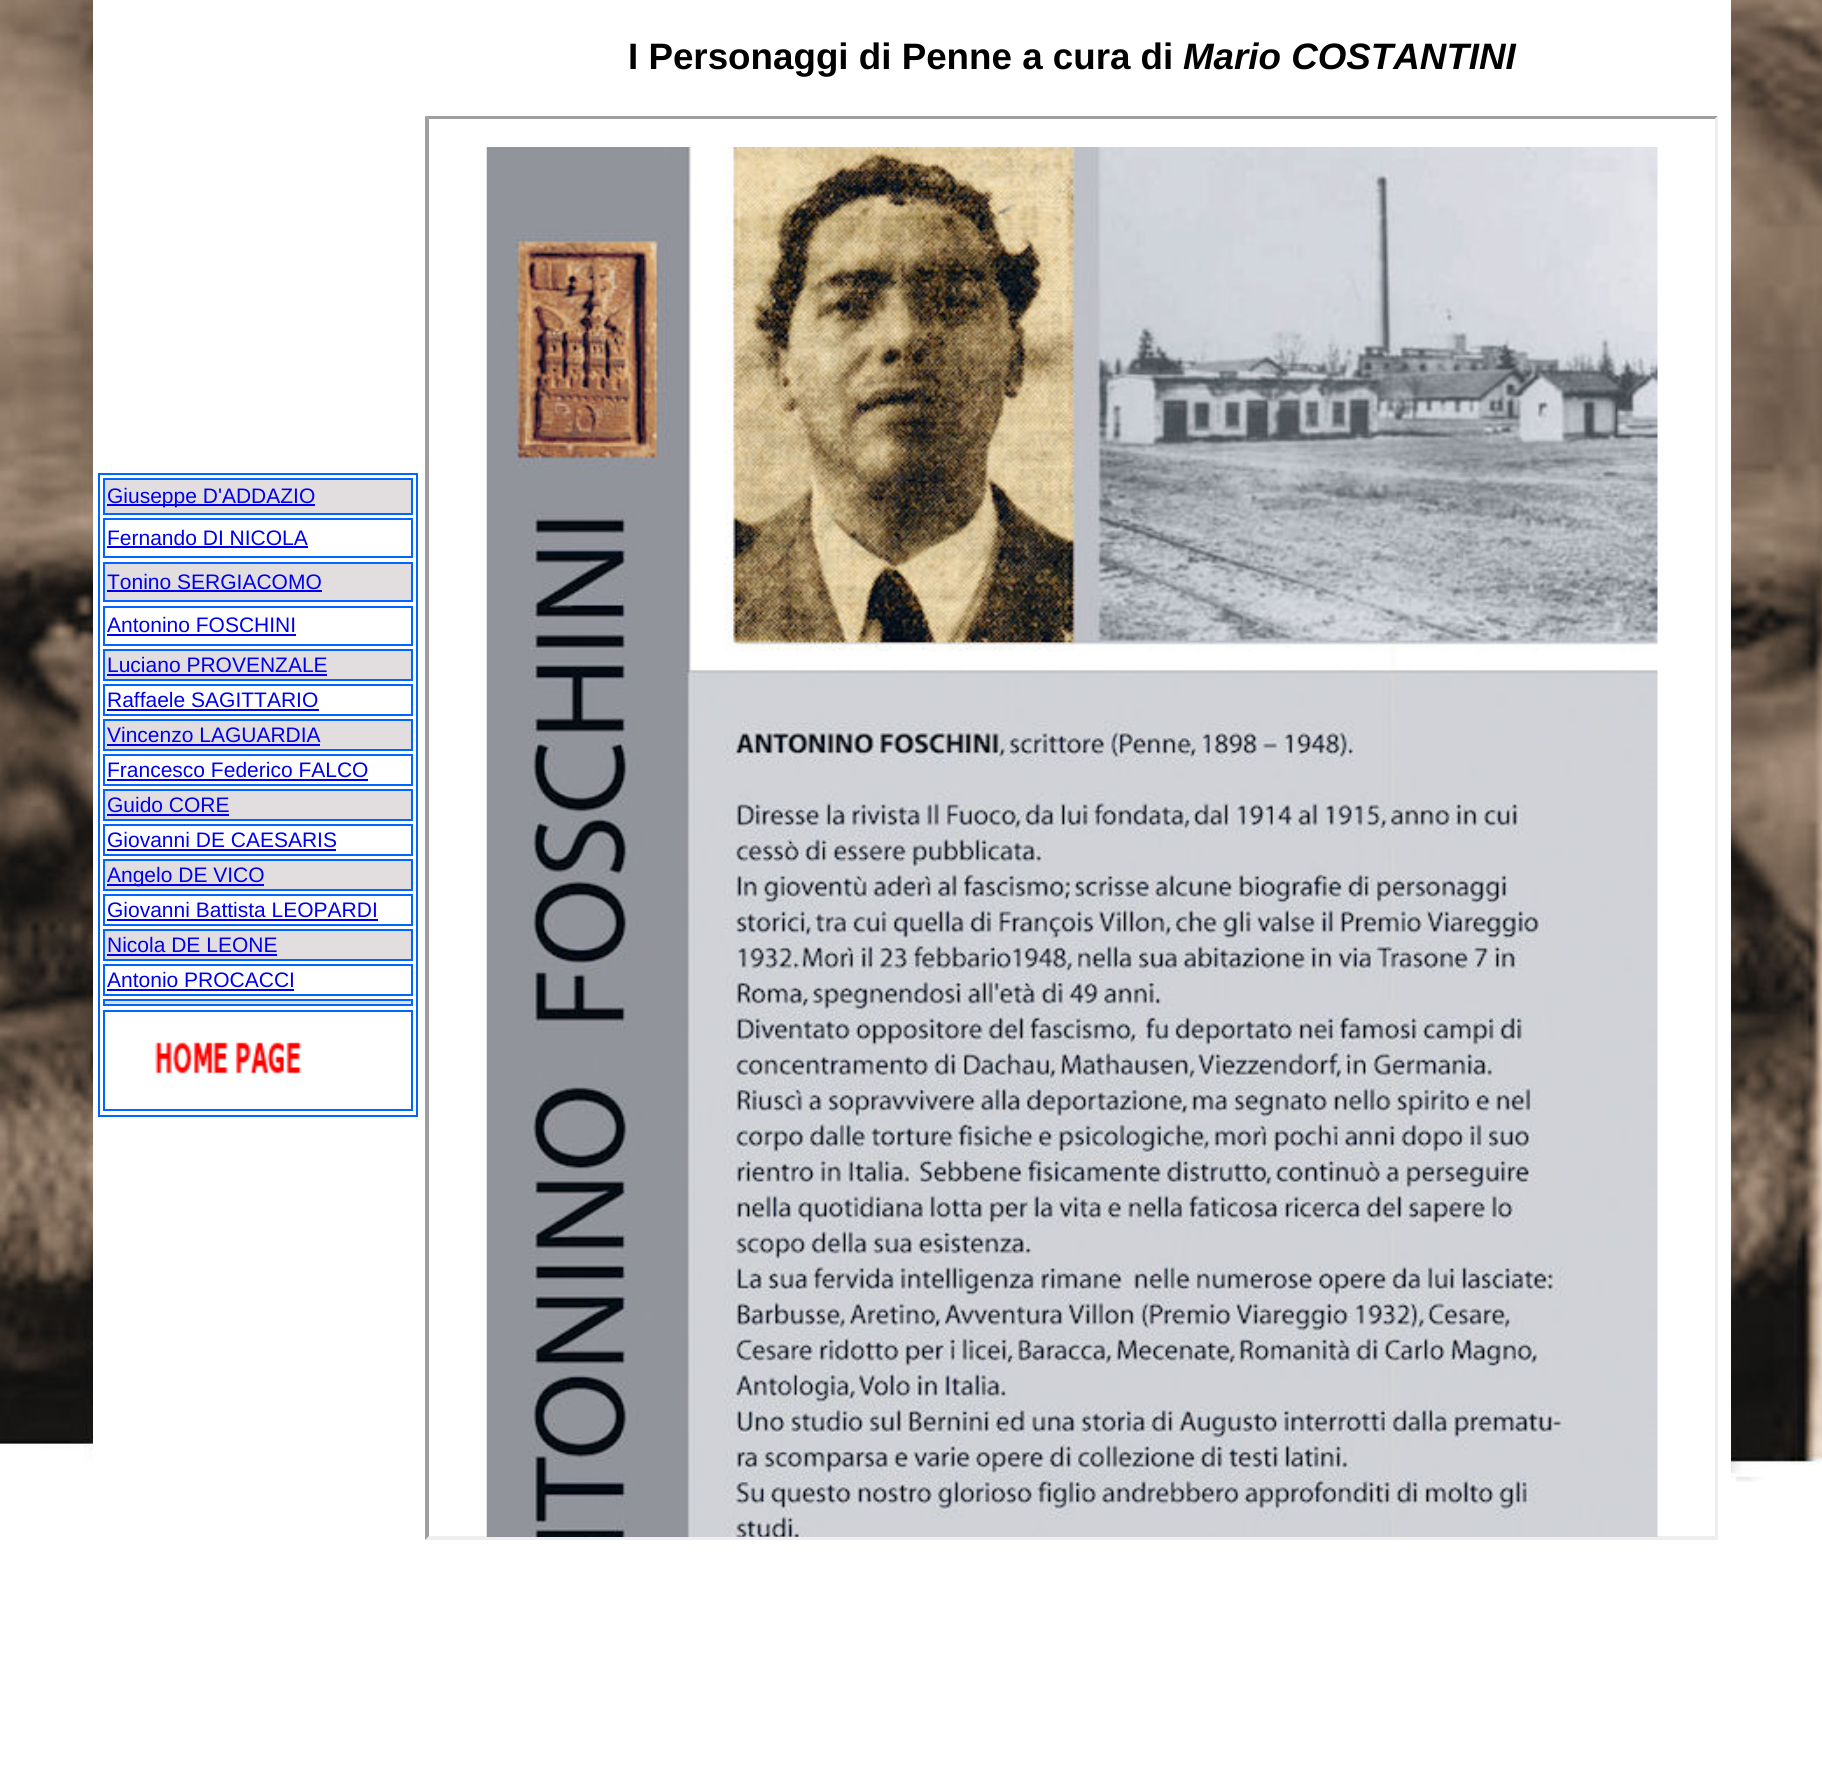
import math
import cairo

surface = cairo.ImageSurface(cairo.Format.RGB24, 1822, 1778)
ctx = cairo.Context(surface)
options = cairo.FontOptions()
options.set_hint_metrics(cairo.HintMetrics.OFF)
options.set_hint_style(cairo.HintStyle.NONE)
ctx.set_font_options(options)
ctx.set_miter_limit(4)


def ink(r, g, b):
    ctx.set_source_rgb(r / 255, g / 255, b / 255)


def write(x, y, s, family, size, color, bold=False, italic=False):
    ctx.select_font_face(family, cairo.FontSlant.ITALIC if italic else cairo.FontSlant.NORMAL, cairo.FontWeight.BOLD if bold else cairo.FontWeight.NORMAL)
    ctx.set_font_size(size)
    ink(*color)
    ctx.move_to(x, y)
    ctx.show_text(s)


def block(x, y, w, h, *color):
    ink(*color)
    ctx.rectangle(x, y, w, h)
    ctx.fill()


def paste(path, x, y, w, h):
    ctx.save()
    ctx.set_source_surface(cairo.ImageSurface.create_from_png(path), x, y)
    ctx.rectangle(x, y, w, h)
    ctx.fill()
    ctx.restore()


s1 = dict(family="Liberation Sans", size=36.75, color=(0, 0, 0), bold=True)
s2 = dict(family="Liberation Sans", size=36.75, color=(0, 0, 0), bold=True, italic=True)
s3 = dict(family="Liberation Sans", size=21, color=(0, 0, 238))

ink(255, 255, 255)
ctx.paint()
paste("pic1.png", 0, 0, 1822, 1482)
block(93, 0, 1638, 1479, 255, 255, 255)
write(628, 69, "I Personaggi di Penne a cura di", **s1)
write(1183, 69, "Mario COSTANTINI", **s2)
ctx.rectangle(99, 474, 318, 642)
ink(0, 102, 255)
ctx.stroke()
ink(226, 222, 223)
ctx.rectangle(104, 479, 308, 35)
ctx.fill_preserve()
ink(0, 102, 255)
ctx.stroke()
block(107, 504, 208, 2, 0, 0, 238)
write(107, 503, "Giuseppe D'ADDAZIO", **s3)
ctx.rectangle(104, 519, 308, 38)
ink(0, 102, 255)
ctx.stroke()
write(107, 545, "Fernando DI NICOLA", **s3)
block(107, 546, 201, 2, 0, 0, 238)
ink(226, 222, 223)
ctx.rectangle(104, 563, 308, 38)
ctx.fill_preserve()
ink(0, 102, 255)
ctx.stroke()
write(107, 589, "Tonino SERGIACOMO", **s3)
block(107, 590, 215, 2, 0, 0, 238)
ctx.rectangle(104, 607, 308, 38)
ink(0, 102, 255)
ctx.stroke()
write(107, 632, "Antonino FOSCHINI", **s3)
block(107, 634, 189, 2, 0, 0, 238)
ink(226, 222, 223)
ctx.rectangle(104, 650, 308, 30)
ctx.fill_preserve()
ink(0, 102, 255)
ctx.stroke()
write(107, 672, "Luciano PROVENZALE", **s3)
block(107, 674, 220, 2, 0, 0, 238)
ctx.rectangle(104, 685, 308, 30)
ink(0, 102, 255)
ctx.stroke()
write(107, 707, "Raffaele SAGITTARIO", **s3)
block(107, 709, 212, 2, 0, 0, 238)
ink(226, 222, 223)
ctx.rectangle(104, 720, 308, 30)
ctx.fill_preserve()
ink(0, 102, 255)
ctx.stroke()
write(107, 742, "Vincenzo LAGUARDIA", **s3)
block(107, 744, 213, 2, 0, 0, 238)
ctx.rectangle(104, 755, 308, 30)
ink(0, 102, 255)
ctx.stroke()
write(107, 777, "Francesco Federico FALCO", **s3)
block(107, 779, 261, 2, 0, 0, 238)
ink(226, 222, 223)
ctx.rectangle(104, 790, 308, 30)
ctx.fill_preserve()
ink(0, 102, 255)
ctx.stroke()
write(107, 812, "Guido CORE", **s3)
block(107, 814, 122, 2, 0, 0, 238)
ctx.rectangle(104, 825, 308, 30)
ink(0, 102, 255)
ctx.stroke()
write(107, 847, "Giovanni DE CAESARIS", **s3)
block(107, 849, 229, 2, 0, 0, 238)
ink(226, 222, 223)
ctx.rectangle(104, 860, 308, 30)
ctx.fill_preserve()
ink(0, 102, 255)
ctx.stroke()
block(107, 884, 157, 2, 0, 0, 238)
write(107, 882, "Angelo DE VICO", **s3)
ctx.rectangle(104, 895, 308, 30)
ink(0, 102, 255)
ctx.stroke()
write(107, 917, "Giovanni Battista LEOPARDI", **s3)
block(107, 919, 271, 2, 0, 0, 238)
ink(226, 222, 223)
ctx.rectangle(104, 930, 308, 30)
ctx.fill_preserve()
ink(0, 102, 255)
ctx.stroke()
write(107, 952, "Nicola DE LEONE", **s3)
block(107, 954, 170, 2, 0, 0, 238)
ctx.rectangle(104, 965, 308, 30)
ink(0, 102, 255)
ctx.stroke()
write(107, 987, "Antonio PROCACCI", **s3)
block(107, 989, 187, 2, 0, 0, 238)
ink(226, 222, 223)
ctx.rectangle(104, 1000, 308, 5)
ctx.fill_preserve()
ink(0, 102, 255)
ctx.stroke()
ctx.rectangle(104, 1011, 308, 99)
ctx.stroke()
paste("pic2.png", 155, 1042, 147, 32)
ink(159, 159, 159)
ctx.new_path()
ctx.move_to(425, 116)
ctx.line_to(1718, 116)
ctx.line_to(1715, 119)
ctx.line_to(429, 119)
ctx.close_path()
ctx.fill()
ink(238, 238, 238)
ctx.new_path()
ctx.move_to(1718, 116)
ctx.line_to(1718, 1540)
ctx.line_to(1715, 1536)
ctx.line_to(1715, 119)
ctx.close_path()
ctx.fill()
ctx.new_path()
ctx.move_to(1718, 1540)
ctx.line_to(425, 1540)
ctx.line_to(429, 1536)
ctx.line_to(1715, 1536)
ctx.close_path()
ctx.fill()
ink(159, 159, 159)
ctx.new_path()
ctx.move_to(425, 1540)
ctx.line_to(425, 116)
ctx.line_to(429, 119)
ctx.line_to(429, 1536)
ctx.close_path()
ctx.fill()
paste("pic3.png", 486, 147, 1172, 1390)
surface.write_to_png("screenshot.png")
